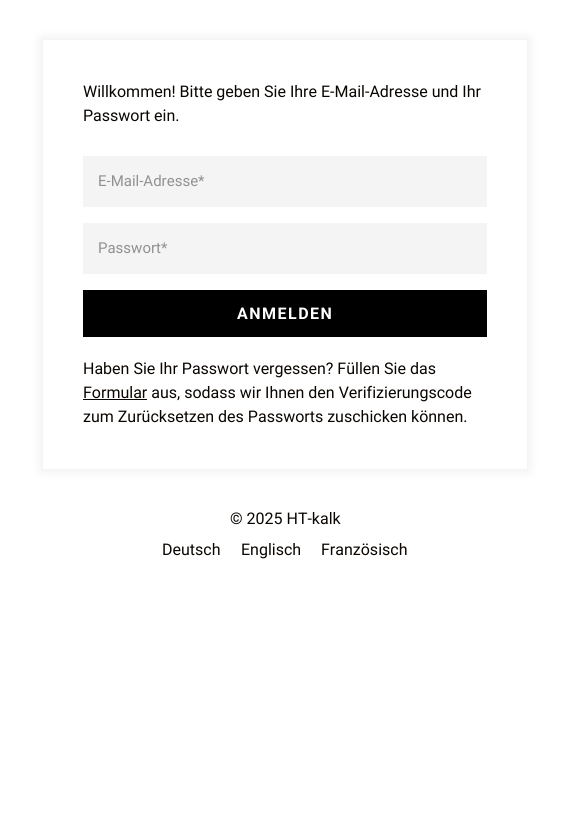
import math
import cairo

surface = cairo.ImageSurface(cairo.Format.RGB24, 570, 826)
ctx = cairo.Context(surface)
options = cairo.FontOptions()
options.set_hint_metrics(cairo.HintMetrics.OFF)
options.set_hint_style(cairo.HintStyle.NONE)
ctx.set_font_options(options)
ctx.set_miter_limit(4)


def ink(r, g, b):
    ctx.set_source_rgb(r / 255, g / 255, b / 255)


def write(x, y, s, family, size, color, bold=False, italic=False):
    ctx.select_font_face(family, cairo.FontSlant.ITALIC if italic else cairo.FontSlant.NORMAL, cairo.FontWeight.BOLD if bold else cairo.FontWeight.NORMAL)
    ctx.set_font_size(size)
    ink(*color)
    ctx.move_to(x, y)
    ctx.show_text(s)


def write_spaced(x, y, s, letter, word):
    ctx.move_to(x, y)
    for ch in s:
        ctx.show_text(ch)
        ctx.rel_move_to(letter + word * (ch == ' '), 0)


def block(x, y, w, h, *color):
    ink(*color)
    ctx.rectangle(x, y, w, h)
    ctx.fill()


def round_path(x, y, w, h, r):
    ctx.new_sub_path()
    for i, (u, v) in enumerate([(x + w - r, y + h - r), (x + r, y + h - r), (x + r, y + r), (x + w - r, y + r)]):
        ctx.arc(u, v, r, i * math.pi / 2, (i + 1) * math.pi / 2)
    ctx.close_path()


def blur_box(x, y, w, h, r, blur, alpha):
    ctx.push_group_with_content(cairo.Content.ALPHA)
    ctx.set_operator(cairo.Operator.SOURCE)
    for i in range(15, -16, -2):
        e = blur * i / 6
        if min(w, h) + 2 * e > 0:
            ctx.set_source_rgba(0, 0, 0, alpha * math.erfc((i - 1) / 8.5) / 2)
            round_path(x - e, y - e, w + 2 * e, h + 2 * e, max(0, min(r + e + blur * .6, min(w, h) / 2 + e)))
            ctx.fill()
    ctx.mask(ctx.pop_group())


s1 = dict(family="Roboto", size=16, color=(10, 5, 1))
s2 = dict(family="Roboto", size=15, color=(145, 145, 145))

ink(255, 255, 255)
ctx.paint()
ctx.save()
ctx.set_fill_rule(cairo.FillRule.EVEN_ODD)
ctx.new_path()
ctx.move_to(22, 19)
ctx.line_to(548, 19)
ctx.line_to(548, 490)
ctx.line_to(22, 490)
ctx.close_path()
ctx.move_to(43, 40)
ctx.line_to(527, 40)
ctx.line_to(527, 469)
ctx.line_to(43, 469)
ctx.close_path()
ctx.clip()
ink(0, 0, 0)
blur_box(41, 38, 488, 433, 0, 6, 0.07)
ctx.restore()
write(83, 97, "Willkommen! Bitte geben Sie Ihre E-Mail-Adresse und Ihr", **s1)
write(83, 121, "Passwort ein.", **s1)
block(83, 156, 404, 51, 244, 244, 244)
write(98, 186, "E-Mail-Adresse*", **s2)
block(83, 223, 404, 51, 244, 244, 244)
write(98, 253, "Passwort*", **s2)
block(83, 290, 404, 47, 0, 0, 0)
ctx.select_font_face("Roboto", cairo.FontSlant.NORMAL, cairo.FontWeight.BOLD)
ctx.set_font_size(16)
ink(255, 255, 255)
write_spaced(237, 319, "ANMELDEN", 1.5, 0)
write(83, 374, "Haben Sie Ihr Passwort vergessen? Füllen Sie das", **s1)
block(83, 399, 64, 1, 10, 5, 1)
write(83, 398, "Formular aus, sodass wir Ihnen den Verifizierungscode", **s1)
write(83, 422, "zum Zurücksetzen des Passworts zuschicken können.", **s1)
write(230, 524, "© 2025 HT-kalk", **s1)
write(162, 555, "Deutsch", **s1)
write(241, 555, "Englisch", **s1)
write(321, 555, "Französisch", **s1)
surface.write_to_png("screenshot.png")
